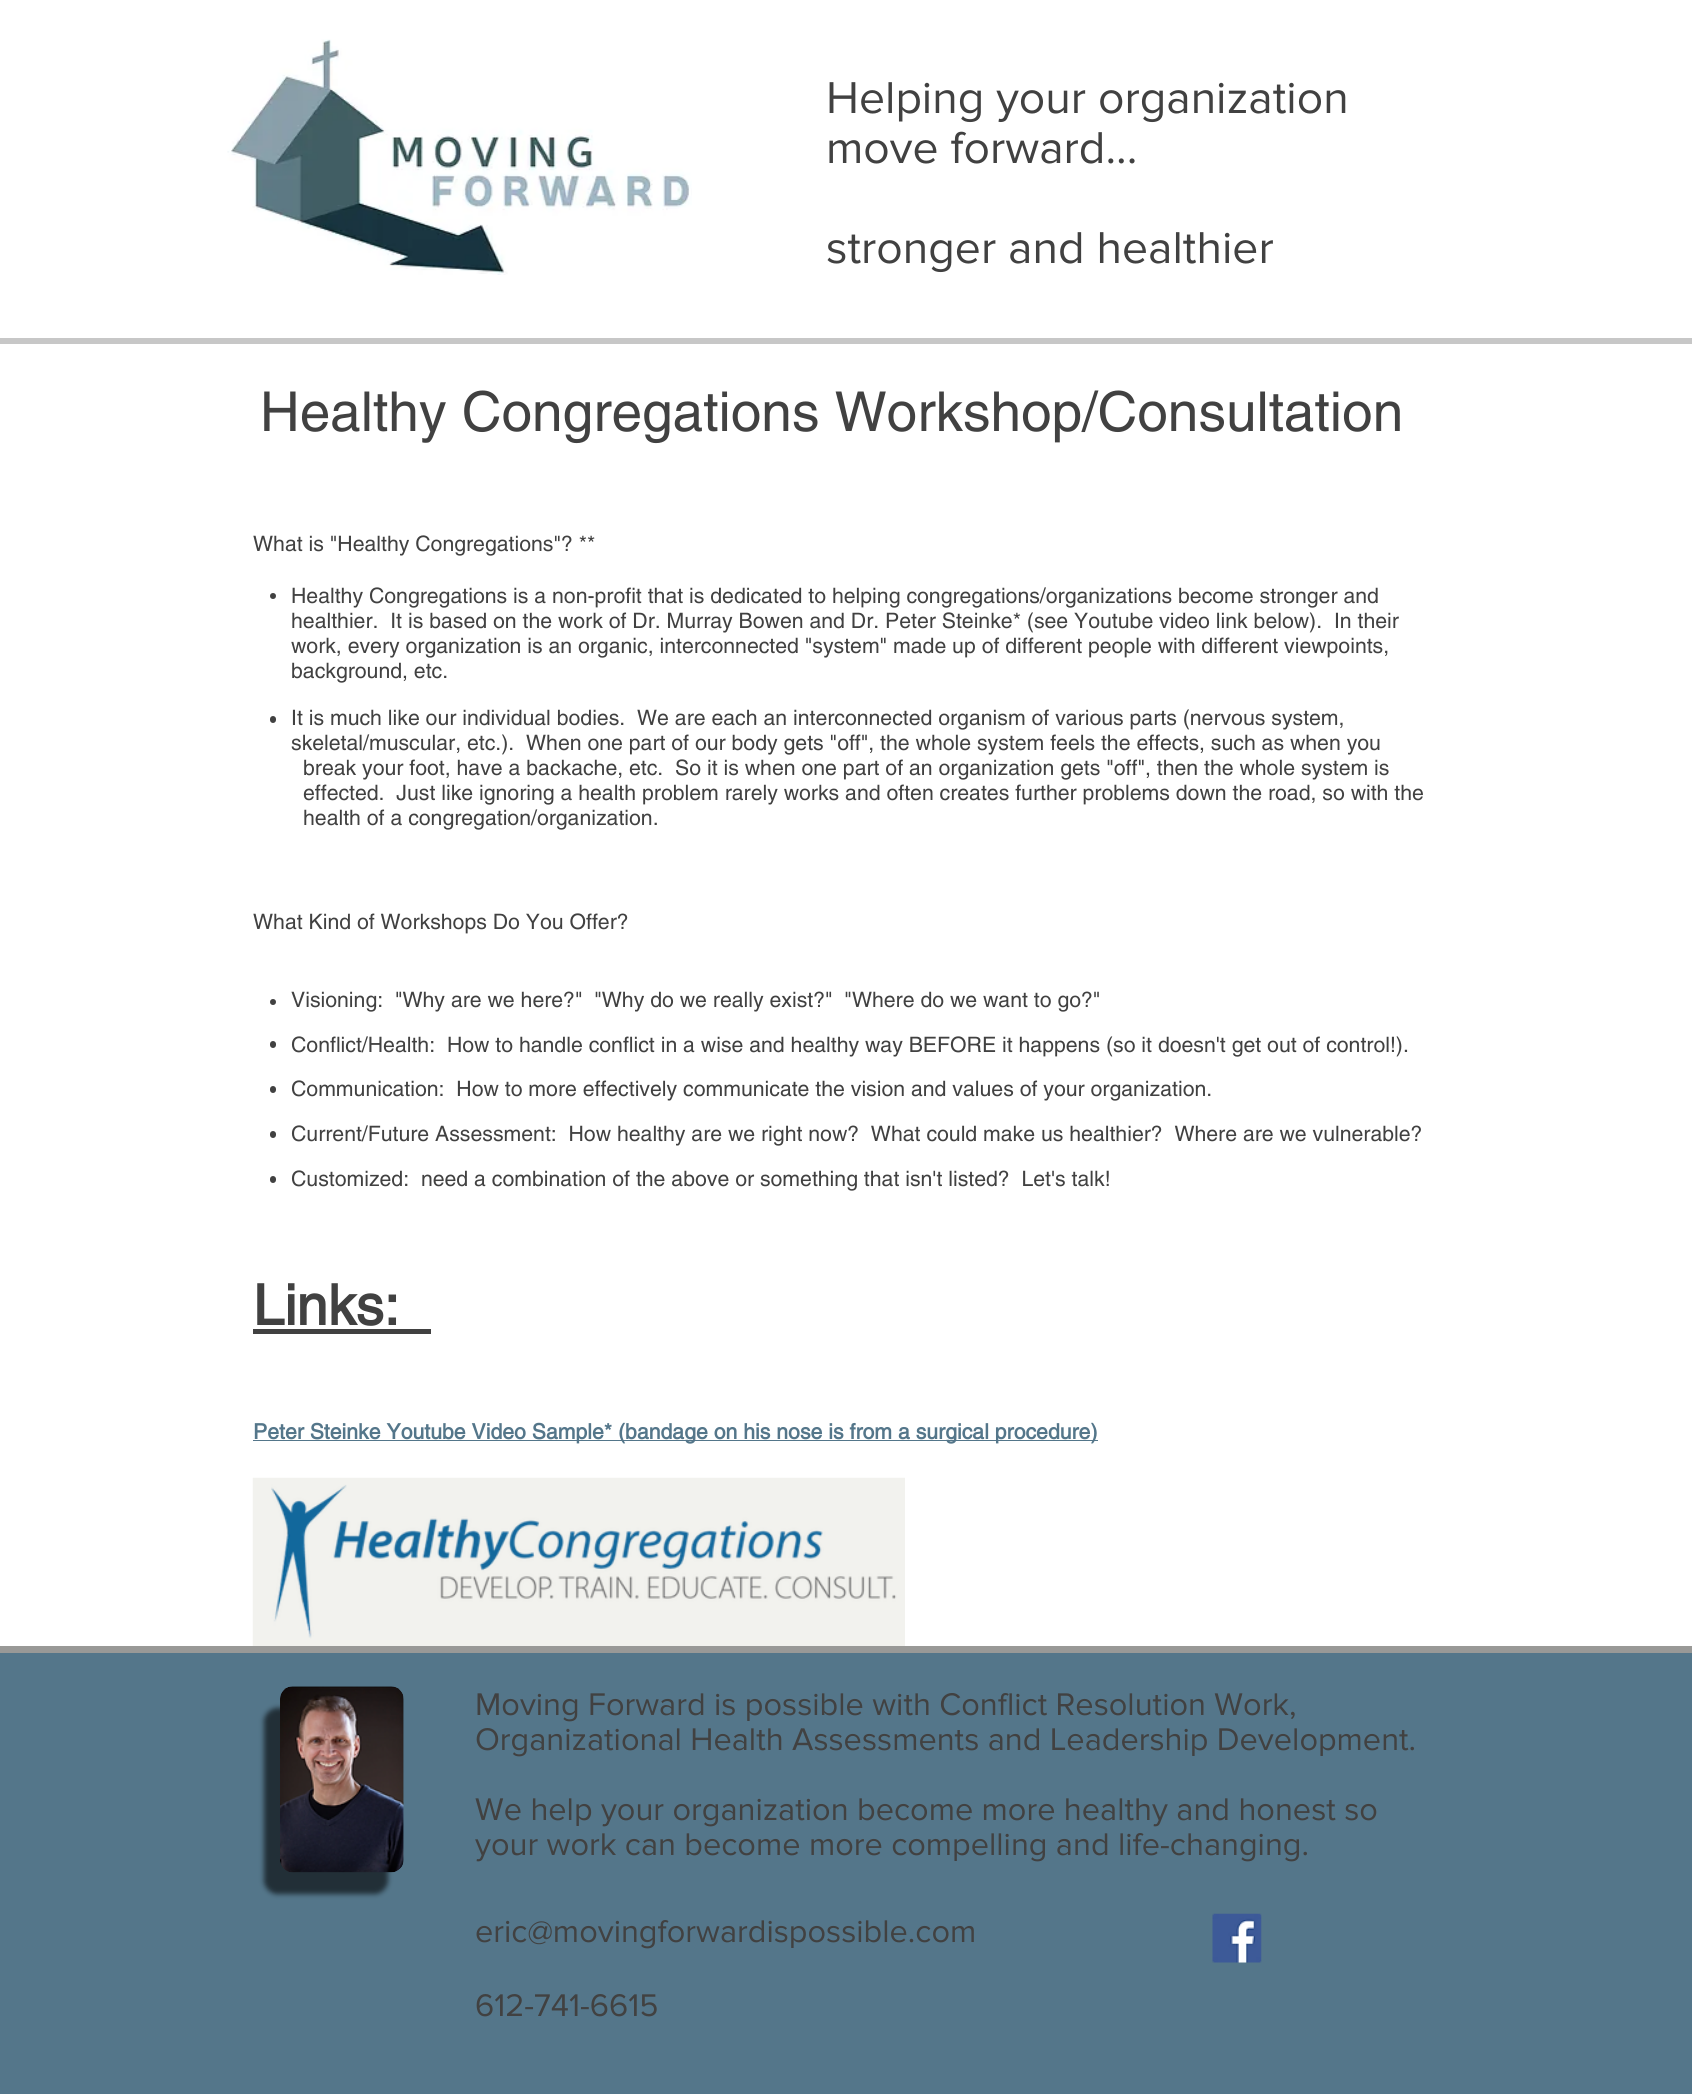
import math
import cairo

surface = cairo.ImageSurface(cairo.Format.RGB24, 1692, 2100)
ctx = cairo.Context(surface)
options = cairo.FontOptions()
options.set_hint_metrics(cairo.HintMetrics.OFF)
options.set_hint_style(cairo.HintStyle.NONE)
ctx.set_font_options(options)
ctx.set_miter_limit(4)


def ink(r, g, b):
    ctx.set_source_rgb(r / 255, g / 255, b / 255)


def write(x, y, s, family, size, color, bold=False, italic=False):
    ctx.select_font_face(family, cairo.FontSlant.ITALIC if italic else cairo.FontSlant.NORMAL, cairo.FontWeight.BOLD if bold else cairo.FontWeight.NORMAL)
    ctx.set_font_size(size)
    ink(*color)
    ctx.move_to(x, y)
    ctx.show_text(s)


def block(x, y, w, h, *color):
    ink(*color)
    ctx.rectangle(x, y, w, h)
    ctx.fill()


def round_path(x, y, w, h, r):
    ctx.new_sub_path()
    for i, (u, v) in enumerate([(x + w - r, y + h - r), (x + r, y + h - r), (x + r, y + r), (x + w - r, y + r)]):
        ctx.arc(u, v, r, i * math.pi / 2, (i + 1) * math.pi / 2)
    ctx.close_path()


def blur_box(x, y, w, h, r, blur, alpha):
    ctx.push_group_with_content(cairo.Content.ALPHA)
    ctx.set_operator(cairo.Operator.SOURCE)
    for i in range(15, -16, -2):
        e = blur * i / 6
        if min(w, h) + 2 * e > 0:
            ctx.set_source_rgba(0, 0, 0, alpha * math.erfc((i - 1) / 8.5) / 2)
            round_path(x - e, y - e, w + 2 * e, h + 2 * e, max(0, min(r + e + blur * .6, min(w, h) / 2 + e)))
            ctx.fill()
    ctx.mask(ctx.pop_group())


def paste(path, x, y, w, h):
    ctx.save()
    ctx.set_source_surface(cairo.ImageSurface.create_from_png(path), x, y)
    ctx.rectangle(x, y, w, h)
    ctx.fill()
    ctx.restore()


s1 = dict(family="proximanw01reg", size=46.25, color=(65, 65, 65))
s2 = dict(family="helvetica", size=55, color=(65, 65, 65))
s3 = dict(family="helvetica", size=21.25, color=(65, 65, 65))
s4 = dict(family="helvetica", size=56, color=(65, 65, 65), bold=True)
s5 = dict(family="helvetica", size=21.25, color=(84, 118, 138), bold=True)
s6 = dict(family="proximanw01reg", size=32.5, color=(65, 65, 65))

ink(255, 255, 255)
ctx.paint()
paste("pic1.png", 227, 39, 465, 236)
write(826, 113, "Helping your organization", **s1)
write(826, 163, "move forward...", **s1)
write(826, 263, "stronger and healthier", **s1)
block(0, 338, 1692, 6, 199, 199, 199)
write(260, 431, "Healthy Congregations Workshop/Consultation", **s2)
write(253, 551, "What is \"Healthy Congregations\"? **", **s3)
ctx.new_path()
ctx.arc(273, 596, 3, 0, 2 * math.pi)
ctx.fill()
write(291, 603, "Healthy Congregations is a non-profit that is dedicated to helping congregations/organizations become stronger and", **s3)
write(291, 628, "healthier.  It is based on the work of Dr. Murray Bowen and Dr. Peter Steinke* (see Youtube video link below).  In their", **s3)
write(291, 653, "work, every organization is an organic, interconnected \"system\" made up of different people with different viewpoints,", **s3)
write(291, 678, "background, etc.", **s3)
round_path(270, 716, 6, 7, 3)
ctx.fill()
write(291, 725, "It is much like our individual bodies.  We are each an interconnected organism of various parts (nervous system,", **s3)
write(291, 750, "skeletal/muscular, etc.).  When one part of our body gets \"off\", the whole system feels the effects, such as when you", **s3)
write(303, 775, "break your foot, have a backache, etc.  So it is when one part of an organization gets \"off\", then the whole system is", **s3)
write(303, 800, "effected.  Just like ignoring a health problem rarely works and often creates further problems down the road, so with the", **s3)
write(303, 825, "health of a congregation/organization.", **s3)
write(253, 929, "What Kind of Workshops Do You Offer?", **s3)
ctx.new_path()
ctx.arc(273, 1002, 3, 0, 2 * math.pi)
ctx.fill()
write(291, 1007, "Visioning:  \"Why are we here?\"  \"Why do we really exist?\"  \"Where do we want to go?\"", **s3)
round_path(270, 1041, 6, 7, 3)
ctx.fill()
write(291, 1052, "Conflict/Health:  How to handle conflict in a wise and healthy way BEFORE it happens (so it doesn't get out of control!).", **s3)
round_path(270, 1086, 6, 7, 3)
ctx.fill()
write(291, 1096, "Communication:  How to more effectively communicate the vision and values of your organization.", **s3)
round_path(270, 1131, 6, 7, 3)
ctx.fill()
write(291, 1141, "Current/Future Assessment:  How healthy are we right now?  What could make us healthier?  Where are we vulnerable?", **s3)
round_path(270, 1176, 6, 7, 3)
ctx.fill()
write(291, 1186, "Customized:  need a combination of the above or something that isn't listed?  Let's talk!", **s3)
write(253, 1325, "Links:", **s4)
block(253, 1329, 178, 5, 65, 65, 65)
block(253, 1440, 845, 1, 84, 118, 138)
write(253, 1439, "Peter Steinke Youtube Video Sample* (bandage on his nose is from a surgical procedure)", **s5)
paste("pic2.png", 252, 1477, 653, 169)
block(0, 1653, 1692, 441, 84, 118, 138)
block(0, 1646, 1692, 7, 153, 153, 151)
ink(0, 0, 0)
blur_box(264, 1708, 124, 186, 13, 2.5, 0.6)
paste("pic3.png", 280, 1686, 124, 187)
write(475, 1715, "Moving Forward is possible with Conflict Resolution Work,", **s6)
write(475, 1750, "Organizational Health Assessments and Leadership Development.", **s6)
write(475, 1820, "We help your organization become more healthy and honest so", **s6)
write(475, 1855, "your work can become more compelling and life-changing.", **s6)
write(475, 1942, "eric@movingforwardispossible.com", **s6)
write(475, 2016, "612-741-6615", **s6)
paste("pic4.png", 1212, 1913, 50, 50)
surface.write_to_png("screenshot.png")
